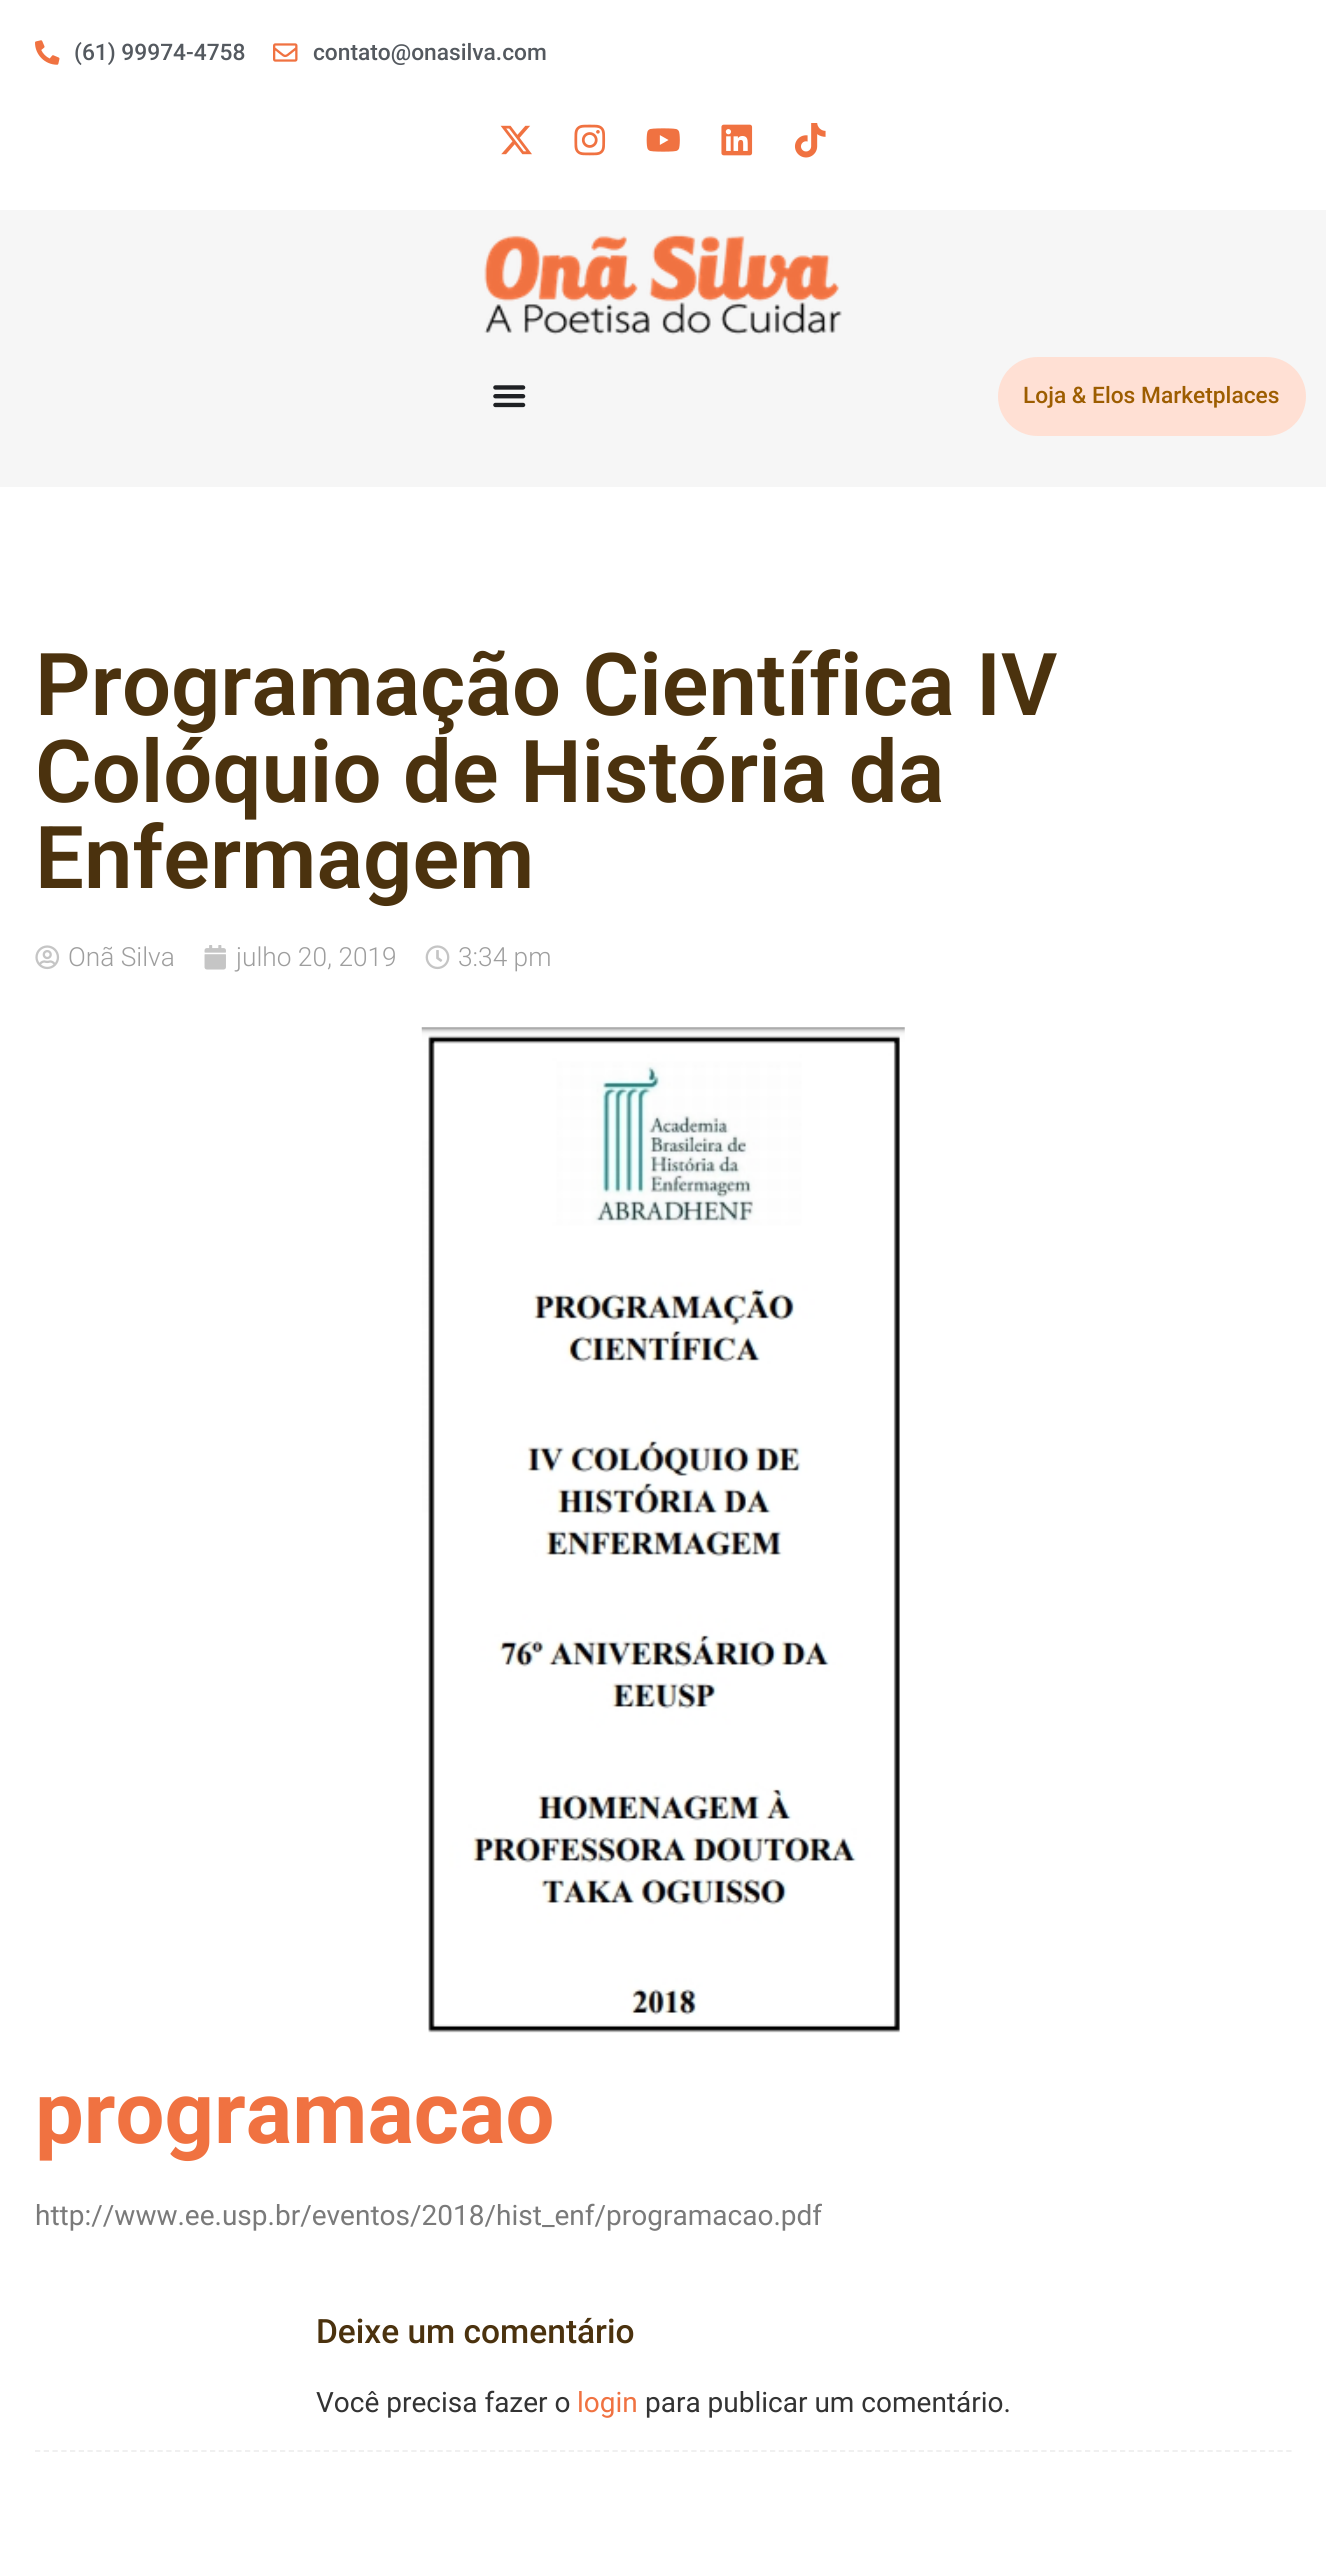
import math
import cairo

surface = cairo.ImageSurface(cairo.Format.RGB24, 1326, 2575)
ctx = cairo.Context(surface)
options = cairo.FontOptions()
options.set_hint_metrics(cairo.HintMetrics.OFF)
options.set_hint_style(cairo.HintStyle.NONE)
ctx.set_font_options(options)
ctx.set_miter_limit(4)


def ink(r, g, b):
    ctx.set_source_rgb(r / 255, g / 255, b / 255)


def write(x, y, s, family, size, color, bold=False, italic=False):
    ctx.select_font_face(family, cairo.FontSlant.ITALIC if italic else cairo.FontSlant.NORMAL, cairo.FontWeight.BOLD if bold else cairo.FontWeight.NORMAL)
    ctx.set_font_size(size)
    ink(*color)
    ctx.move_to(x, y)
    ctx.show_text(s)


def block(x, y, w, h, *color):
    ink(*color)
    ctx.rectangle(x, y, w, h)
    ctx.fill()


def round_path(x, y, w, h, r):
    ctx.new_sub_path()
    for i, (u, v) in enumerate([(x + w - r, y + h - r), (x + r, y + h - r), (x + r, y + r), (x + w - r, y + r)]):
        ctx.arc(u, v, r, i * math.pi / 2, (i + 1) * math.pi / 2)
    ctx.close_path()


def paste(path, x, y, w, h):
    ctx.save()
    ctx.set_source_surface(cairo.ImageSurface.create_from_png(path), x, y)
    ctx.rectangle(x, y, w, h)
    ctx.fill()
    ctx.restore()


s1 = dict(family="Roboto Medium", size=22.75, color=(84, 89, 95))
s2 = dict(family="Roboto Medium", size=22.75, color=(157, 93, 0))
s3 = dict(family="Roboto SemiBold", size=86.75, color=(75, 50, 14))
s4 = dict(family="Roboto Light", size=26.25, color=(158, 158, 158))
s5 = dict(family="Roboto", size=86.75, color=(240, 114, 65), bold=True)
s6 = dict(family="Roboto", size=28, color=(122, 122, 122))
s7 = dict(family="Roboto Medium", size=33.5, color=(75, 50, 14))
s8 = dict(family="Roboto", size=28, color=(51, 51, 51))
s9 = dict(family="Roboto", size=28, color=(240, 114, 65))

ink(255, 255, 255)
ctx.paint()
paste("pic1.png", 35, 40, 25, 25)
write(74, 60, "(61) 99974-4758", **s1)
paste("pic2.png", 273, 43, 25, 19)
write(313, 60, "contato@onasilva.com", **s1)
paste("pic3.png", 500, 125, 32, 30)
paste("pic4.png", 574, 124, 32, 32)
paste("pic5.png", 646, 128, 34, 24)
paste("pic6.png", 721, 124, 32, 32)
paste("pic7.png", 794, 123, 32, 35)
block(0, 210, 1326, 277, 246, 246, 246)
paste("pic8.png", 484, 234, 358, 101)
paste("pic9.png", 493, 385, 33, 23)
ink(255, 224, 212)
round_path(998, 357, 308, 79, 39.5)
ctx.fill()
write(1023, 403, "Loja & Elos Marketplaces", **s2)
write(35, 715, "Programação Científica IV", **s3)
write(35, 802, "Colóquio de História da", **s3)
write(35, 888, "Enfermagem", **s3)
paste("pic10.png", 35, 945, 25, 25)
write(68, 966, "Onã Silva", **s4)
paste("pic11.png", 204, 945, 22, 25)
write(236, 966, "julho 20, 2019", **s4)
paste("pic12.png", 425, 945, 25, 25)
write(458, 966, "3:34 pm", **s4)
paste("pic13.png", 421, 1027, 484, 1006)
write(35, 2143, "programacao", **s5)
write(35, 2225, "http://www.ee.usp.br/eventos/2018/hist_enf/programacao.pdf", **s6)
ctx.new_path()
ctx.move_to(35, 2451)
ctx.line_to(1291.5, 2451)
ink(238, 238, 238)
ctx.set_line_width(1.8)
ctx.set_dash([5.25, 3.5])
ctx.stroke()
write(316, 2343, "Deixe um comentário", **s7)
write(316, 2412, "Você precisa fazer o", **s8)
write(577, 2412, "login", **s9)
write(645, 2412, "para publicar um comentário.", **s8)
surface.write_to_png("screenshot.png")
